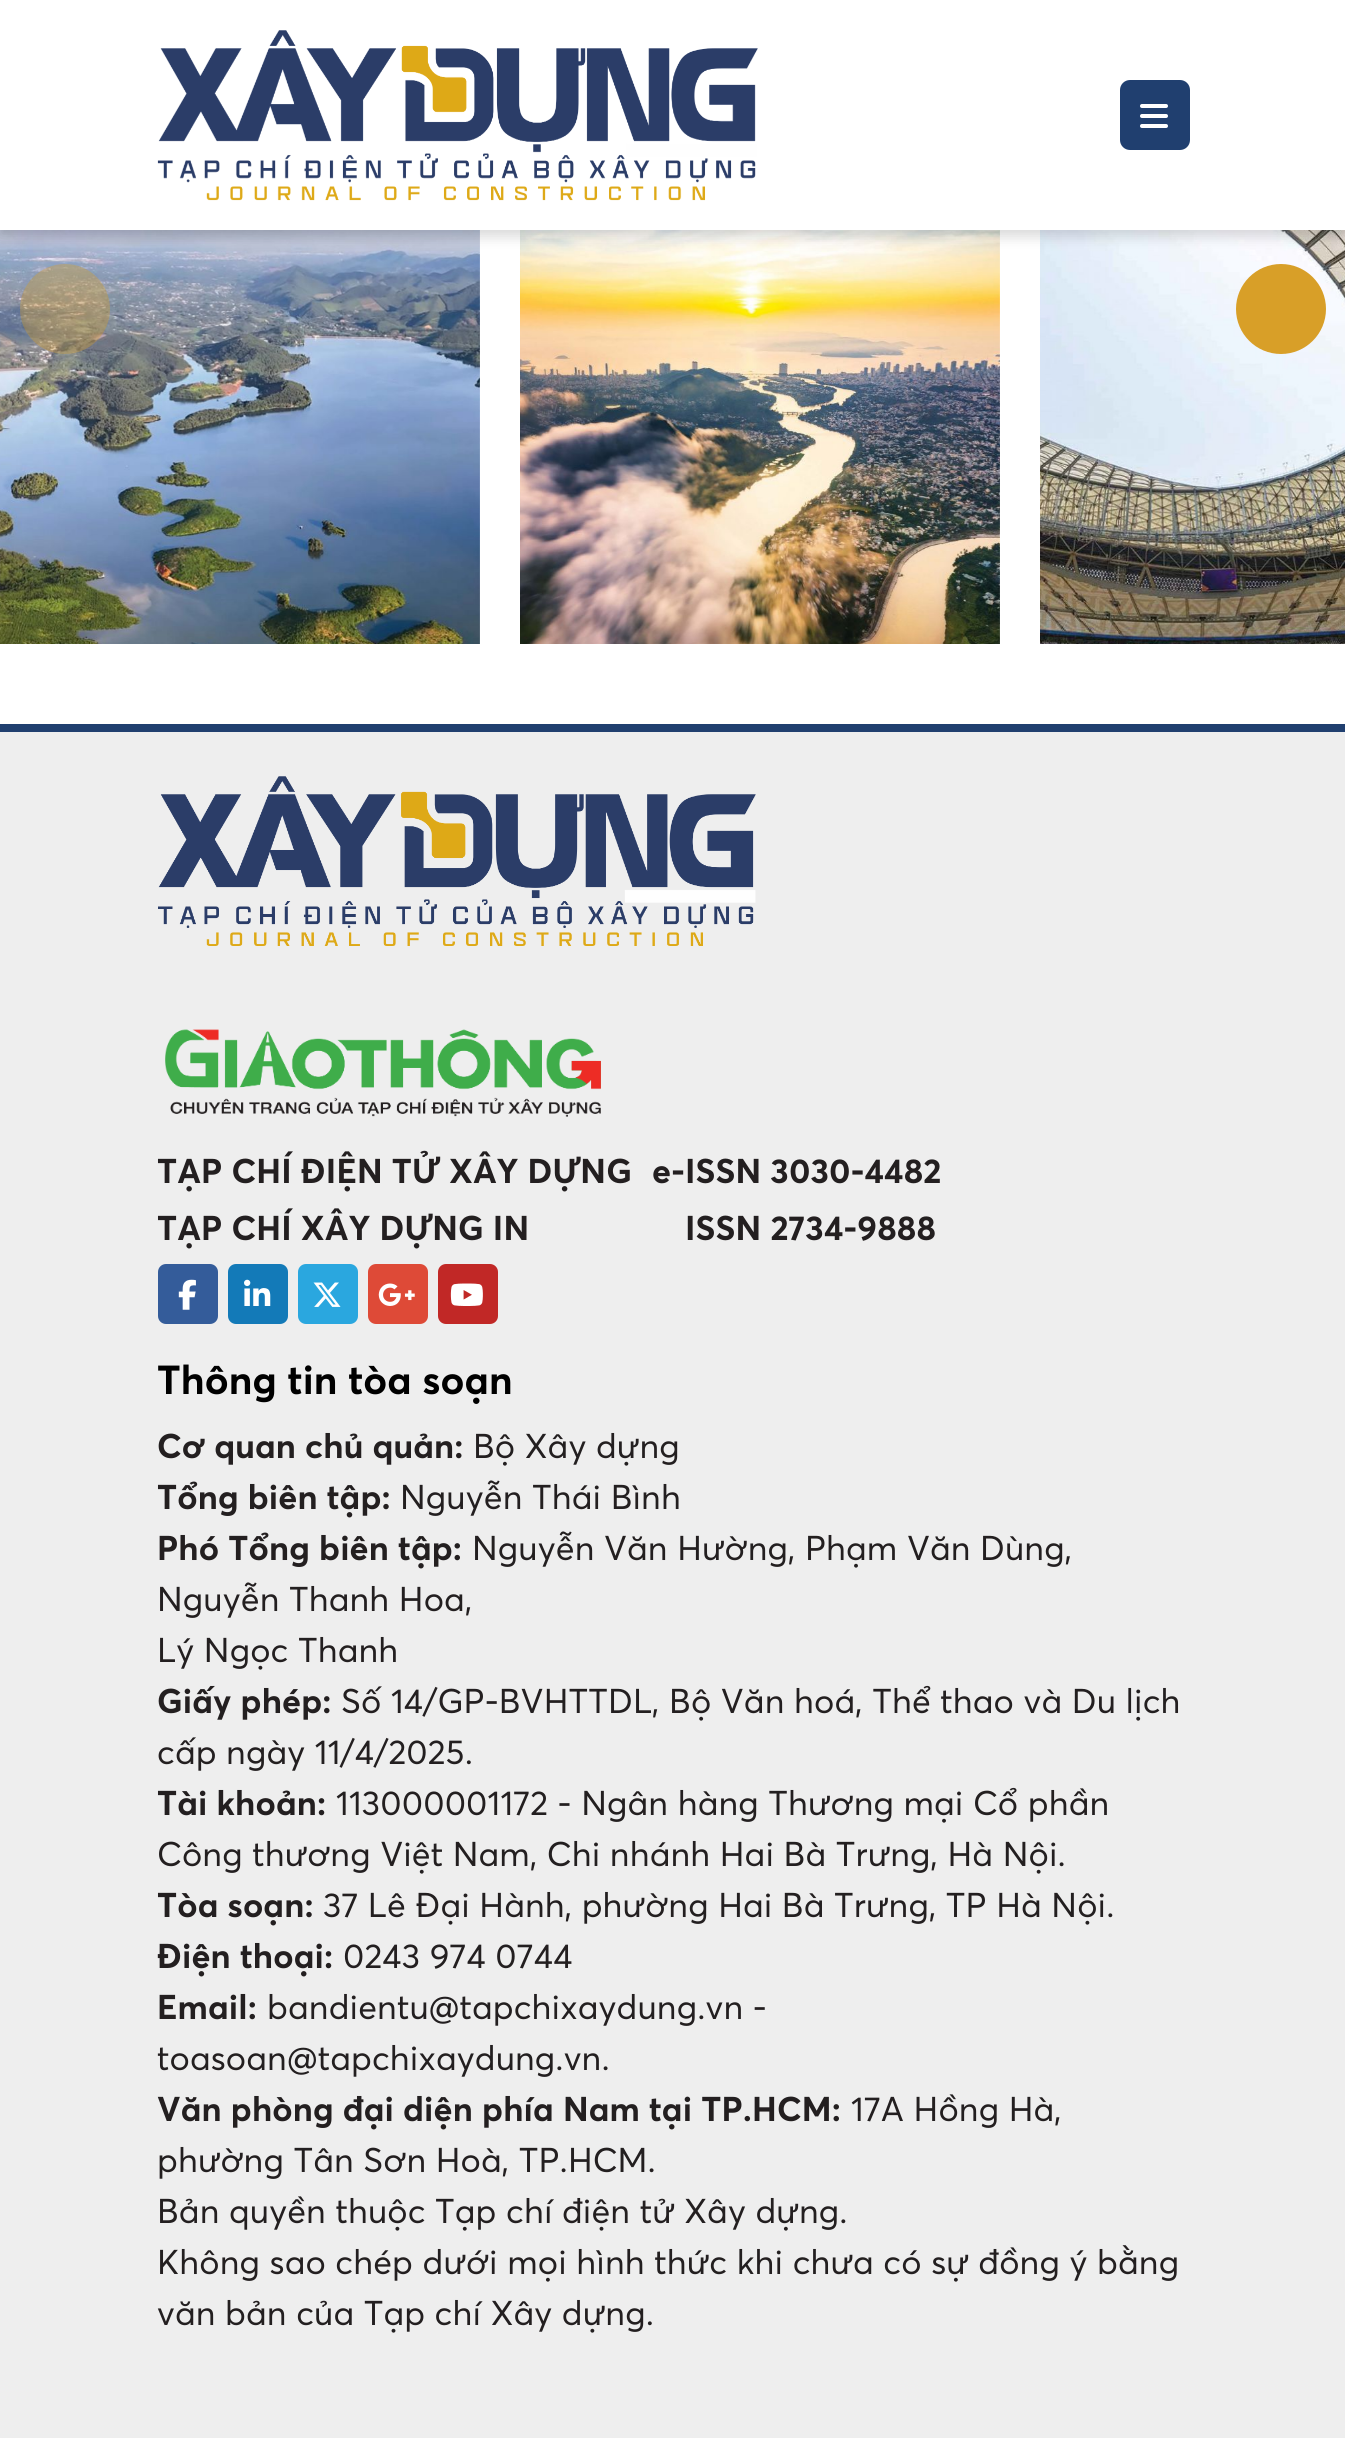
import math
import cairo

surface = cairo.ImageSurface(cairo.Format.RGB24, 1345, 2438)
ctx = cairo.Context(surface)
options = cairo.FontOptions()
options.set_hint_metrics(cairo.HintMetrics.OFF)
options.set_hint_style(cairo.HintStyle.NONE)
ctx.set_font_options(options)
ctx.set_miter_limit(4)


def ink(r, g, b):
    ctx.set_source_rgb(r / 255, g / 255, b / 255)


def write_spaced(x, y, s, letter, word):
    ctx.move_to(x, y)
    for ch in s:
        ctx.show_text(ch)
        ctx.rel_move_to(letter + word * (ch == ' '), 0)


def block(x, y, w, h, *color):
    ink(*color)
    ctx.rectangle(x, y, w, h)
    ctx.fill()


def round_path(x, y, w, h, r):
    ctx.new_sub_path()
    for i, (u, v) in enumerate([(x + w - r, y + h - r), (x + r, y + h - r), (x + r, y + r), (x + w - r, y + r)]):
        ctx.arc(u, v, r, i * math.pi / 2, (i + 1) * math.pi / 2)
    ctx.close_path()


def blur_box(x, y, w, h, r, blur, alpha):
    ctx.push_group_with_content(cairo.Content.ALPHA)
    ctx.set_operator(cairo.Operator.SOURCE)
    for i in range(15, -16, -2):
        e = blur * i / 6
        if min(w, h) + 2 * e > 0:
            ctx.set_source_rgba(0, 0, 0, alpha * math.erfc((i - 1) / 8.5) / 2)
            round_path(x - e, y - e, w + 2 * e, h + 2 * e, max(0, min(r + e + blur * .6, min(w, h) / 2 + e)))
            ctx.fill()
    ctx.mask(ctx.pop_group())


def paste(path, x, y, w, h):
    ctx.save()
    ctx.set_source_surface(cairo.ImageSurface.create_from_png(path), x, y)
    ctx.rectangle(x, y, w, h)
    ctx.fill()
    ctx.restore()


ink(255, 255, 255)
ctx.paint()
paste("pic3.png", 0, 230, 480, 414)
paste("pic4.png", 520, 230, 480, 414)
paste("pic5.png", 1040, 230, 305, 414)
ink(0, 0, 0)
blur_box(0, 6, 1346, 230, 0, 7, 0.16)
block(0, 0, 1345, 230, 255, 255, 255)
paste("pic1.png", 157, 30, 601, 171)
ink(32, 63, 111)
round_path(1120, 80, 70, 70, 10)
ctx.fill()
paste("pic2.png", 1140, 104, 28, 24)
ctx.set_source_rgba(0.847, 0.624, 0.157, 0.35)
ctx.arc(65, 309, 45, 0, 2 * math.pi)
ctx.fill()
ink(216, 159, 40)
ctx.arc(1281, 309, 45, 0, 2 * math.pi)
ctx.fill()
block(0, 724, 1345, 8, 32, 63, 111)
block(0, 732, 1345, 1706, 238, 238, 238)
paste("pic6.png", 158, 776, 598, 170)
paste("pic7.png", 165, 1029, 436, 88)
ctx.select_font_face("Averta", cairo.FontSlant.NORMAL, cairo.FontWeight.BOLD)
ctx.set_font_size(34)
ink(35, 31, 32)
write_spaced(157, 1183, "TẠP CHÍ ĐIỆN TỬ XÂY DỰNG", 0.13, 0)
write_spaced(652, 1183, "e-ISSN 3030-4482", 0.13, 0)
write_spaced(157, 1240, "TẠP CHÍ XÂY DỰNG IN", 0.13, 0)
write_spaced(685, 1240, "ISSN 2734-9888", 0.13, 0)
ink(52, 92, 154)
round_path(158, 1264, 60, 60, 8)
ctx.fill()
paste("pic8.png", 178, 1279, 18, 31)
ink(19, 122, 184)
round_path(228, 1264, 60, 60, 8)
ctx.fill()
paste("pic9.png", 244, 1279, 27, 27)
ink(42, 167, 223)
round_path(298, 1264, 60, 60, 8)
ctx.fill()
paste("pic10.png", 313, 1282, 28, 25)
ink(222, 74, 55)
round_path(368, 1264, 60, 60, 8)
ctx.fill()
paste("pic11.png", 378, 1283, 37, 23)
ink(193, 40, 38)
round_path(438, 1264, 60, 60, 8)
ctx.fill()
paste("pic12.png", 450, 1283, 33, 23)
ctx.set_font_size(40)
ink(0, 0, 0)
write_spaced(157, 1394, "Thông tin tòa soạn", 0.13, 0)
ctx.set_font_size(34)
ink(35, 31, 32)
write_spaced(157, 1458, "Cơ quan chủ quản:", 0.13, 0)
ctx.select_font_face("Averta")
write_spaced(473, 1458, "Bộ Xây dựng", 0.13, 0)
ctx.select_font_face("Averta", cairo.FontSlant.NORMAL, cairo.FontWeight.BOLD)
write_spaced(157, 1509, "Tổng biên tập:", 0.13, 0)
ctx.select_font_face("Averta")
write_spaced(400, 1509, "Nguyễn Thái Bình", 0.13, 0)
ctx.select_font_face("Averta", cairo.FontSlant.NORMAL, cairo.FontWeight.BOLD)
write_spaced(157, 1560, "Phó Tổng biên tập:", 0.13, 0)
ctx.select_font_face("Averta")
write_spaced(472, 1560, "Nguyễn Văn Hường, Phạm Văn Dùng,", 0.13, 0)
write_spaced(157, 1611, "Nguyễn Thanh Hoa,", 0.13, 0)
write_spaced(157, 1662, "Lý Ngọc Thanh", 0.13, 0)
ctx.select_font_face("Averta", cairo.FontSlant.NORMAL, cairo.FontWeight.BOLD)
write_spaced(157, 1713, "Giấy phép:", 0.13, 0)
ctx.select_font_face("Averta")
write_spaced(341, 1713, "Số 14/GP-BVHTTDL, Bộ Văn hoá, Thể thao và Du lịch", 0.13, 0)
write_spaced(157, 1764, "cấp ngày 11/4/2025.", 0.13, 0)
ctx.select_font_face("Averta", cairo.FontSlant.NORMAL, cairo.FontWeight.BOLD)
write_spaced(157, 1815, "Tài khoản:", 0.13, 0)
ctx.select_font_face("Averta")
write_spaced(336, 1815, "113000001172 - Ngân hàng Thương mại Cổ phần", 0.13, 0)
write_spaced(157, 1866, "Công thương Việt Nam, Chi nhánh Hai Bà Trưng, Hà Nội.", 0.13, 0)
ctx.select_font_face("Averta", cairo.FontSlant.NORMAL, cairo.FontWeight.BOLD)
write_spaced(157, 1917, "Tòa soạn:", 0.13, 0)
ctx.select_font_face("Averta")
write_spaced(323, 1917, "37 Lê Đại Hành, phường Hai Bà Trưng, TP Hà Nội.", 0.13, 0)
ctx.select_font_face("Averta", cairo.FontSlant.NORMAL, cairo.FontWeight.BOLD)
write_spaced(157, 1968, "Điện thoại:", 0.13, 0)
ctx.select_font_face("Averta")
write_spaced(343, 1968, "0243 974 0744", 0.13, 0)
ctx.select_font_face("Averta", cairo.FontSlant.NORMAL, cairo.FontWeight.BOLD)
write_spaced(157, 2019, "Email:", 0.13, 0)
ctx.select_font_face("Averta")
write_spaced(267, 2019, "bandientu@tapchixaydung.vn -", 0.13, 0)
write_spaced(157, 2070, "toasoan@tapchixaydung.vn.", 0.13, 0)
ctx.select_font_face("Averta", cairo.FontSlant.NORMAL, cairo.FontWeight.BOLD)
write_spaced(157, 2121, "Văn phòng đại diện phía Nam tại TP.HCM:", 0.13, 0)
ctx.select_font_face("Averta")
write_spaced(851, 2121, "17A Hồng Hà,", 0.13, 0)
write_spaced(157, 2172, "phường Tân Sơn Hoà, TP.HCM.", 0.13, 0)
write_spaced(157, 2223, "Bản quyền thuộc Tạp chí điện tử Xây dựng.", 0.13, 0)
write_spaced(157, 2274, "Không sao chép dưới mọi hình thức khi chưa có sự đồng ý bằng", 0.13, 0)
write_spaced(157, 2325, "văn bản của Tạp chí Xây dựng.", 0.13, 0)
surface.write_to_png("screenshot.png")
